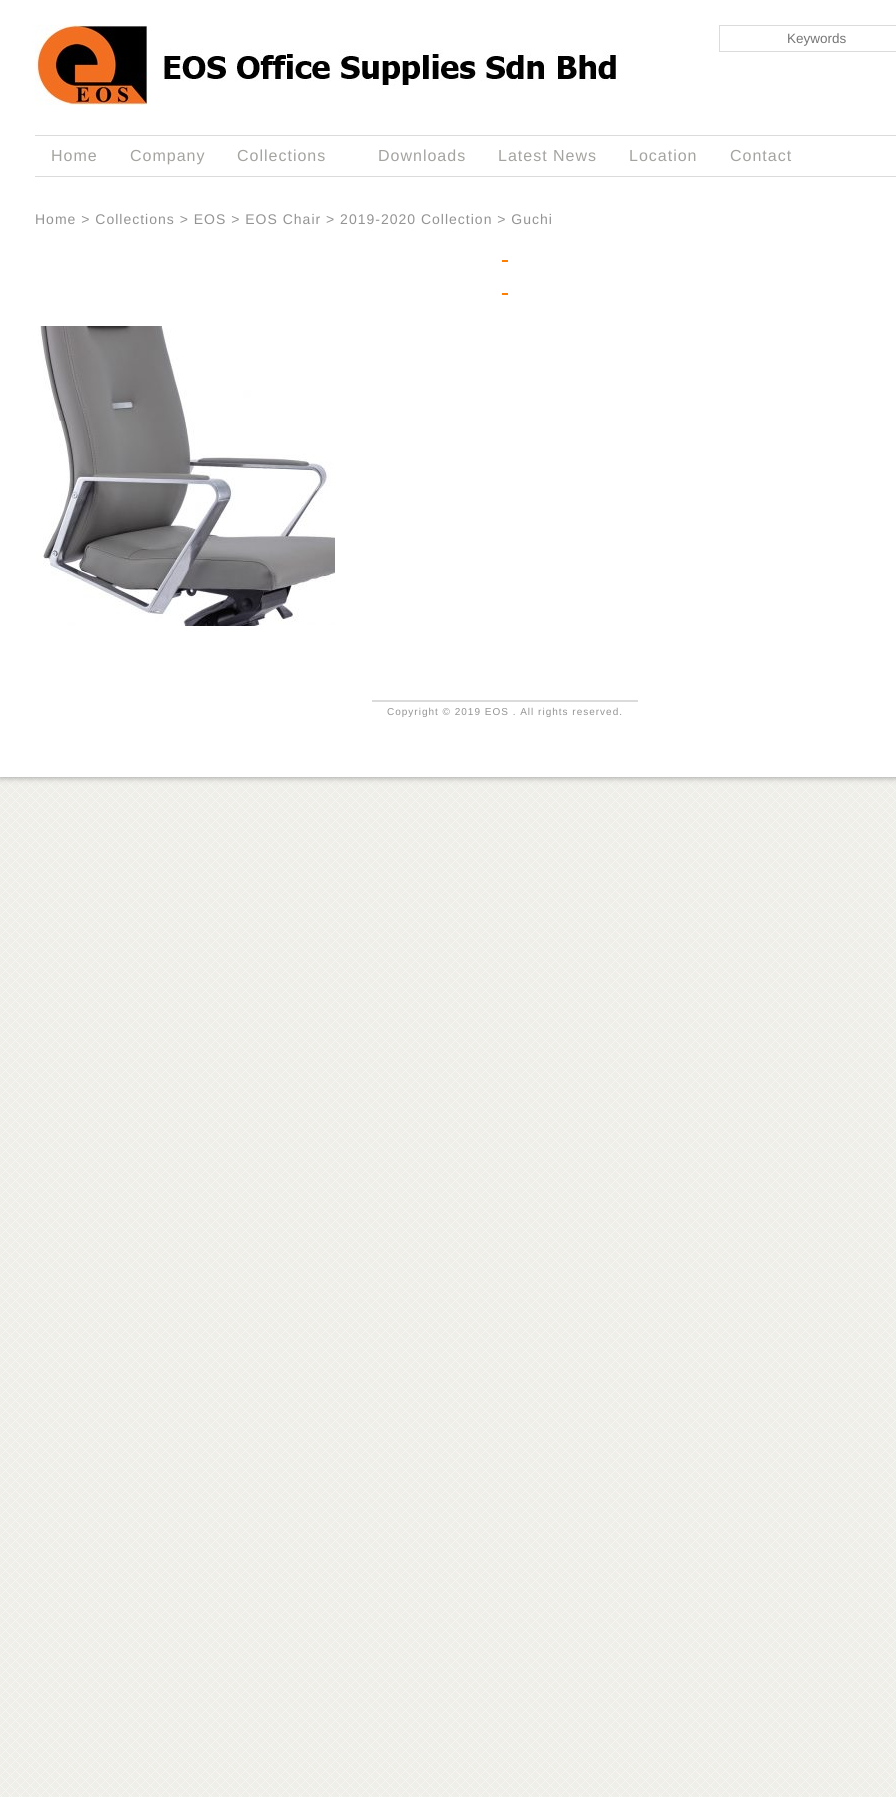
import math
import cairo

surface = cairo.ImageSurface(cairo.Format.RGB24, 896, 1797)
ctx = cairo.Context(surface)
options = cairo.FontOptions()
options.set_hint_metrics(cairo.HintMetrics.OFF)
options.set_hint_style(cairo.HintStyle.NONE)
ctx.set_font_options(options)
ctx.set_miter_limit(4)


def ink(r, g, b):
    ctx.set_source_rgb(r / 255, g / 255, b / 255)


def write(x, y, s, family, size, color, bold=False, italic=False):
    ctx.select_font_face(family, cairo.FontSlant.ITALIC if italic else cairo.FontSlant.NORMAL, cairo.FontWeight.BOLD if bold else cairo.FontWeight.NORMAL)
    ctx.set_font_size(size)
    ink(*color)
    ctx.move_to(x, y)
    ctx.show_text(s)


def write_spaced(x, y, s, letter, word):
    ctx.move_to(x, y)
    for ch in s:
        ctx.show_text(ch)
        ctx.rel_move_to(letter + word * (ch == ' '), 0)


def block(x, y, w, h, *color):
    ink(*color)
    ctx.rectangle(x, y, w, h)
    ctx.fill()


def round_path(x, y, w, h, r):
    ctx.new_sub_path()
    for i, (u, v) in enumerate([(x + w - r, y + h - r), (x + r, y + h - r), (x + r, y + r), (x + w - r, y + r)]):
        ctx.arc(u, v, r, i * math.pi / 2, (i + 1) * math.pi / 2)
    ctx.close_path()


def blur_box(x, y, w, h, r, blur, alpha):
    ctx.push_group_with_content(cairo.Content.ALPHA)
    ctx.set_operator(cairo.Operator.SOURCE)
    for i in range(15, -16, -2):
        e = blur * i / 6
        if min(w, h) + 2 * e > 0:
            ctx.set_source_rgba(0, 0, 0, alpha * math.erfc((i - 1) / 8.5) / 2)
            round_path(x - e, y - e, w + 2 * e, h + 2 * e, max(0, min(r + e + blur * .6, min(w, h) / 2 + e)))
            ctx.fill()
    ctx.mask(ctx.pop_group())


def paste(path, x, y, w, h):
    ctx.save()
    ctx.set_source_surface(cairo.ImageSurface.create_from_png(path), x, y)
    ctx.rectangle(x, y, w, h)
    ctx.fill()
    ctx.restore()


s1 = dict(family="Liberation Sans", size=13.5, color=(117, 117, 117))

ink(255, 255, 255)
ctx.paint()
paste("pic1.png", 0, 777, 896, 1020)
ink(147, 147, 147)
blur_box(0, 0, 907, 777, 0, 3.5, 1)
block(0, 0, 896, 777, 255, 255, 255)
paste("pic2.png", 35, 25, 584, 80)
ctx.rectangle(719.5, 25.5, 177, 26)
ink(219, 219, 219)
ctx.set_line_width(1)
ctx.stroke()
write(787, 43, "Keywords", **s1)
block(35, 135, 861, 1, 219, 219, 219)
block(35, 176, 861, 1, 219, 219, 219)
ctx.set_font_size(16)
ink(164, 163, 159)
write_spaced(51, 161, "Home", 1, 0)
write_spaced(130, 161, "Company", 1, 0)
write_spaced(237, 161, "Collections", 1, 0)
write_spaced(378, 161, "Downloads", 1, 0)
write_spaced(498, 161, "Latest News", 1, 0)
write_spaced(629, 161, "Location", 1, 0)
write_spaced(730, 161, "Contact", 1, 0)
ctx.set_font_size(14)
ink(147, 147, 147)
write_spaced(35, 224, "Home > Collections > EOS > EOS Chair > 2019-2020 Collection > Guchi", 1, 0)
block(502, 260, 6, 2, 255, 126, 0)
block(502, 293, 6, 2, 255, 126, 0)
paste("pic3.png", 38, 326, 297, 300)
block(372, 700, 266, 2, 219, 219, 219)
ctx.set_font_size(10)
ink(147, 147, 147)
write_spaced(387, 715, "Copyright © 2019 EOS . All rights reserved.", 1, 0)
surface.write_to_png("screenshot.png")
